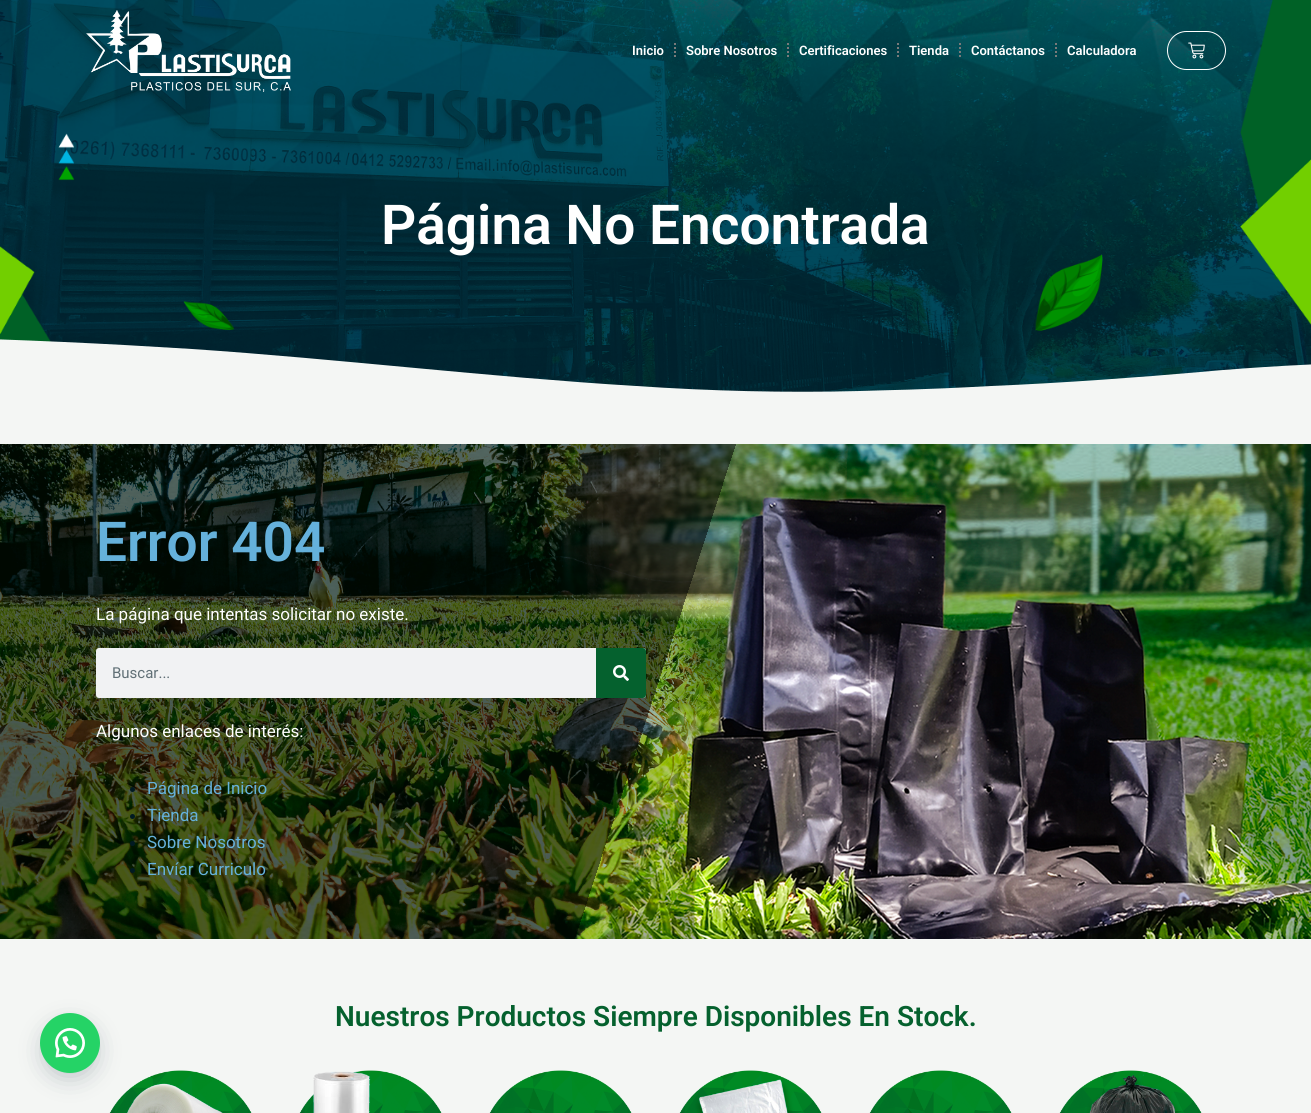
import math
import cairo

surface = cairo.ImageSurface(cairo.Format.RGB24, 1311, 1113)
ctx = cairo.Context(surface)
options = cairo.FontOptions()
options.set_hint_metrics(cairo.HintMetrics.OFF)
options.set_hint_style(cairo.HintStyle.NONE)
ctx.set_font_options(options)
ctx.set_miter_limit(4)


def ink(r, g, b):
    ctx.set_source_rgb(r / 255, g / 255, b / 255)


def write(x, y, s, family, size, color, bold=False, italic=False):
    ctx.select_font_face(family, cairo.FontSlant.ITALIC if italic else cairo.FontSlant.NORMAL, cairo.FontWeight.BOLD if bold else cairo.FontWeight.NORMAL)
    ctx.set_font_size(size)
    ink(*color)
    ctx.move_to(x, y)
    ctx.show_text(s)


def round_path(x, y, w, h, r):
    ctx.new_sub_path()
    for i, (u, v) in enumerate([(x + w - r, y + h - r), (x + r, y + h - r), (x + r, y + r), (x + w - r, y + r)]):
        ctx.arc(u, v, r, i * math.pi / 2, (i + 1) * math.pi / 2)
    ctx.close_path()


def blur_box(x, y, w, h, r, blur, alpha):
    ctx.push_group_with_content(cairo.Content.ALPHA)
    ctx.set_operator(cairo.Operator.SOURCE)
    for i in range(15, -16, -2):
        e = blur * i / 6
        if min(w, h) + 2 * e > 0:
            ctx.set_source_rgba(0, 0, 0, alpha * math.erfc((i - 1) / 8.5) / 2)
            round_path(x - e, y - e, w + 2 * e, h + 2 * e, max(0, min(r + e + blur * .6, min(w, h) / 2 + e)))
            ctx.fill()
    ctx.mask(ctx.pop_group())


def paste(path, x, y, w, h):
    ctx.save()
    ctx.set_source_surface(cairo.ImageSurface.create_from_png(path), x, y)
    ctx.rectangle(x, y, w, h)
    ctx.fill()
    ctx.restore()


s1 = dict(family="Roboto SemiBold", size=13, color=(255, 255, 255))
s2 = dict(family="Roboto SemiBold", size=55, color=(255, 255, 255))
s3 = dict(family="Roboto SemiBold", size=55, color=(101, 177, 219))
s4 = dict(family="Roboto", size=17, color=(255, 255, 255))
s5 = dict(family="Roboto", size=15, color=(97, 112, 118))
s6 = dict(family="Roboto", size=17, color=(101, 177, 219))
s7 = dict(family="Roboto SemiBold", size=28, color=(5, 97, 46))

ink(244, 246, 244)
ctx.paint()
paste("pic3.png", 0, 0, 1311, 392)
paste("pic1.png", 86, 10, 205, 82)
write(632, 55, "Inicio", **s1)
ctx.new_path()
ctx.move_to(675, 43)
ctx.line_to(675, 59)
ink(122, 122, 122)
ctx.set_dash([2, 2])
ctx.stroke()
write(686, 55, "Sobre Nosotros", **s1)
ctx.new_path()
ctx.move_to(788, 43)
ctx.line_to(788, 59)
ink(122, 122, 122)
ctx.stroke()
write(799, 55, "Certificaciones", **s1)
ctx.new_path()
ctx.move_to(898, 43)
ctx.line_to(898, 59)
ink(122, 122, 122)
ctx.stroke()
write(909, 55, "Tienda", **s1)
ctx.new_path()
ctx.move_to(960, 43)
ctx.line_to(960, 59)
ink(122, 122, 122)
ctx.stroke()
write(971, 55, "Contáctanos", **s1)
ctx.new_path()
ctx.move_to(1056, 43)
ctx.line_to(1056, 59)
ink(122, 122, 122)
ctx.stroke()
write(1067, 55, "Calculadora", **s1)
round_path(1167.5, 31.5, 58, 38, 19)
ctx.set_line_width(1)
ctx.set_dash([])
ctx.stroke()
paste("pic2.png", 1188, 42, 17, 17)
write(381, 244, "Página No Encontrada", **s2)
ink(244, 246, 244)
ctx.new_path()
ctx.move_to(860, 391)
ctx.curve_to(786, 393, 710, 391, 636, 386)
ctx.curve_to(488, 377, 340, 359, 192, 349)
ctx.curve_to(19, 338, -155, 333, -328, 337)
ctx.curve_to(-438, 339, -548, 344, -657, 353)
ctx.line_to(-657, 395)
ctx.line_to(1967, 395)
ctx.line_to(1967, 377)
ctx.curve_to(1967, 377, 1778, 357, 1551, 358)
ctx.curve_to(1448, 359, 1308, 362, 1200, 372)
ctx.curve_to(1144, 377, 1063, 383, 991, 386)
ctx.curve_to(919, 390, 887, 390, 860, 391)
ctx.close_path()
ctx.fill()
paste("pic4.png", 0, 444, 1311, 495)
write(96, 561, "Error 404", **s3)
write(96, 620, "La página que intentas solicitar no existe.", **s4)
ink(241, 242, 243)
round_path(96, 648, 550, 50, 3)
ctx.fill()
write(112, 678, "Buscar...", **s5)
ink(5, 97, 46)
ctx.new_path()
ctx.move_to(596, 648)
ctx.line_to(643, 648)
ctx.curve_to(644.5, 648, 646, 649.5, 646, 651)
ctx.line_to(646, 695)
ctx.curve_to(646, 696.5, 644.5, 698, 643, 698)
ctx.line_to(596, 698)
ctx.close_path()
ctx.fill()
paste("pic5.png", 613, 665, 16, 16)
write(96, 737, "Algunos enlaces de interés:", **s4)
ink(1, 26, 34)
ctx.new_path()
ctx.arc(132.5, 789.5, 2.5, 0, 2 * math.pi)
ctx.fill()
write(147, 794, "Página de Inicio", **s6)
ink(1, 26, 34)
ctx.new_path()
ctx.arc(132.5, 816.5, 2.5, 0, 2 * math.pi)
ctx.fill()
write(147, 821, "Tienda", **s6)
ink(1, 26, 34)
ctx.new_path()
ctx.arc(132.5, 843.5, 2.5, 0, 2 * math.pi)
ctx.fill()
write(147, 848, "Sobre Nosotros", **s6)
ink(1, 26, 34)
ctx.new_path()
ctx.arc(132.5, 870.5, 2.5, 0, 2 * math.pi)
ctx.fill()
write(147, 875, "Envíar Curriculo", **s6)
write(335, 1026, "Nuestros Productos Siempre Disponibles En Stock.", **s7)
paste("pic6.png", 109, 1070, 143, 43)
paste("pic7.png", 299, 1070, 143, 43)
paste("pic8.png", 489, 1070, 143, 43)
paste("pic9.png", 679, 1070, 143, 43)
paste("pic10.png", 869, 1070, 143, 43)
paste("pic11.png", 1059, 1070, 143, 43)
ink(45, 62, 79)
blur_box(45, 1026, 50, 50, 25, 12.5, 0.3)
ink(37, 211, 102)
ctx.arc(70, 1043, 30, 0, 2 * math.pi)
ctx.fill()
paste("pic12.png", 55, 1028, 30, 30)
surface.write_to_png("screenshot.png")
